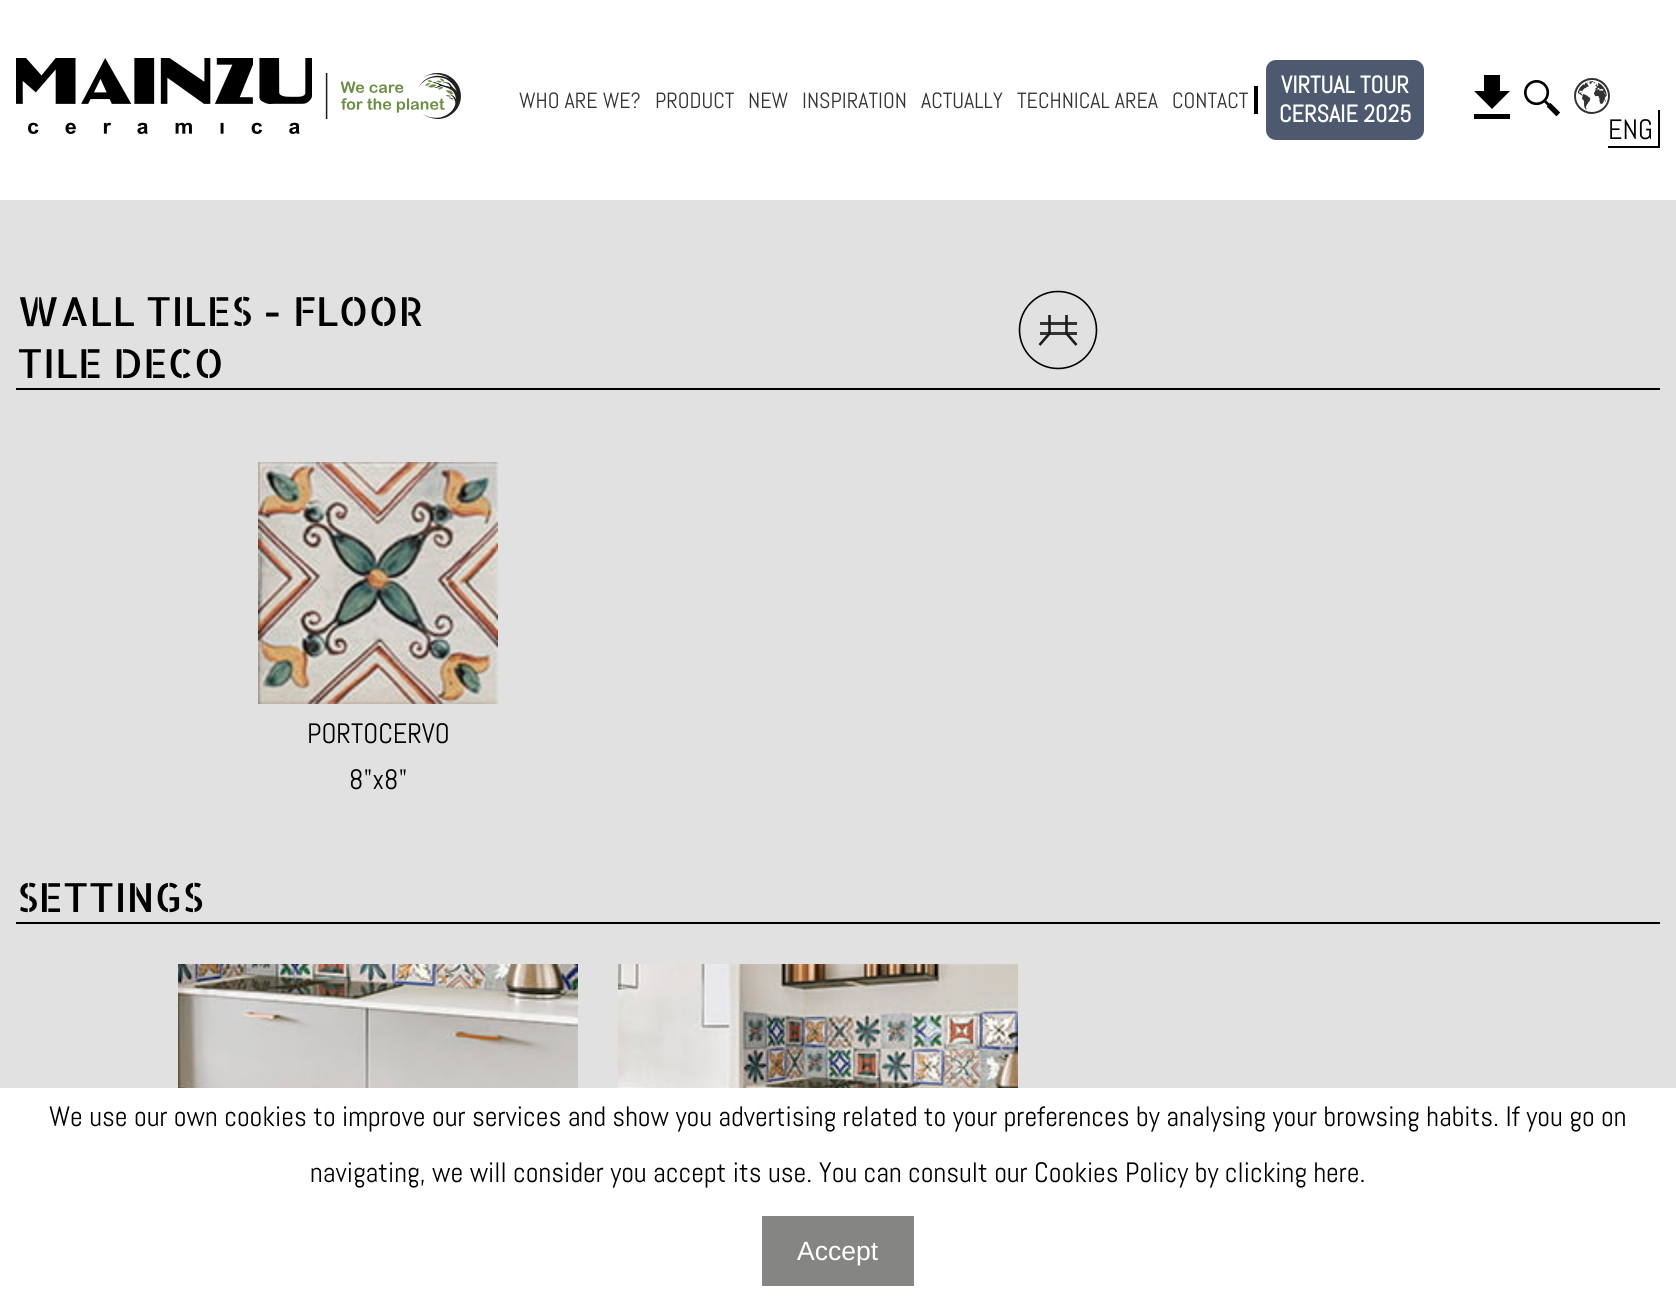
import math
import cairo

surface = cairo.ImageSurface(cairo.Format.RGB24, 1676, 1302)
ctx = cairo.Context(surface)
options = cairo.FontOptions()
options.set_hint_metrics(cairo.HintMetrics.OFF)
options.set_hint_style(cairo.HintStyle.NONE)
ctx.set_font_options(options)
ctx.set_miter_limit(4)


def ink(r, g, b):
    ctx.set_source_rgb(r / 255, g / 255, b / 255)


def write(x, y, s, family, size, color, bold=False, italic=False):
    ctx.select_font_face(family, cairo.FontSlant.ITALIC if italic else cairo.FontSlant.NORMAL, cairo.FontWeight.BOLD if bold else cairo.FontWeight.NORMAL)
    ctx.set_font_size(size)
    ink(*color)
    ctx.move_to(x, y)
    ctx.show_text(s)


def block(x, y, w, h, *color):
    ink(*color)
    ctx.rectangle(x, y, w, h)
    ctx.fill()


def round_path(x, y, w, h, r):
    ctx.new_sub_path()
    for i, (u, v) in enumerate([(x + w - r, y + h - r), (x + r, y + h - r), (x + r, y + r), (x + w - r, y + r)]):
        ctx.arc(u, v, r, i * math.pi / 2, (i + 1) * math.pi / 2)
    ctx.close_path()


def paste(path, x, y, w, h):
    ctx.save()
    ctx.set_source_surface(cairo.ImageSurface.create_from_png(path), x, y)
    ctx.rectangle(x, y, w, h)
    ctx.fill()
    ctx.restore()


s1 = dict(family="Abel", size=22, color=(51, 51, 51))
s2 = dict(family="Abel", size=24, color=(255, 255, 255), bold=True)
s3 = dict(family="Abel", size=28, color=(0, 0, 0))
s4 = dict(family="Allerta Stencil", size=40, color=(0, 0, 0))
s5 = dict(family="Liberation Sans", size=26.5, color=(255, 255, 255))

ink(226, 225, 225)
ctx.paint()
block(0, 0, 1676, 200, 255, 255, 255)
paste("pic1.png", 16, 58, 296, 76)
paste("pic2.png", 325, 72, 136, 48)
write(519, 108, "WHO ARE WE?", **s1)
write(655, 108, "PRODUCT", **s1)
write(748, 108, "NEW", **s1)
write(802, 108, "INSPIRATION", **s1)
write(921, 108, "ACTUALLY", **s1)
write(1017, 108, "TECHNICAL AREA", **s1)
block(1254, 86, 4, 28, 0, 0, 0)
write(1172, 108, "CONTACT", **s1)
ink(77, 89, 111)
round_path(1266, 60, 158, 80, 10)
ctx.fill()
write(1281, 93, "VIRTUAL TOUR", **s2)
write(1279, 122, "CERSAIE 2025", **s2)
ink(0, 0, 0)
ctx.new_path()
ctx.move_to(1510, 91)
ctx.line_to(1500, 91)
ctx.line_to(1500, 75)
ctx.line_to(1484, 75)
ctx.line_to(1484, 91)
ctx.line_to(1474, 91)
ctx.line_to(1492, 109)
ctx.close_path()
ctx.move_to(1474, 114)
ctx.line_to(1474, 119)
ctx.line_to(1510, 119)
ctx.line_to(1510, 114)
ctx.close_path()
ctx.fill()
paste("pic3.png", 1524, 80, 36, 36)
paste("pic4.png", 1574, 78, 36, 36)
block(1658, 110, 2, 38, 0, 0, 0)
block(1608, 146, 52, 2, 0, 0, 0)
write(1608, 139, "ENG", **s3)
block(16, 388, 1644, 2, 0, 0, 0)
write(17, 326, "WALL TILES - FLOOR", **s4)
write(17, 378, "TILE DECO", **s4)
ctx.new_path()
ctx.arc(1058, 330, 38.5, 0, 2 * math.pi)
ctx.set_line_width(1.6)
ctx.stroke()
block(1040, 332, 37, 3, 53, 53, 51)
block(1040, 322, 37, 3, 53, 53, 51)
ctx.new_path()
ctx.move_to(1049.5, 315)
ctx.line_to(1049.5, 333.5)
ctx.line_to(1039.5, 345)
ctx.move_to(1066.5, 315)
ctx.line_to(1066.5, 333.5)
ctx.line_to(1076.5, 345)
ink(26, 26, 24)
ctx.set_line_width(2.6)
ctx.stroke()
paste("pic5.png", 258, 462, 240, 242)
write(307, 743, "PORTOCERVO", **s3)
write(349, 789, "8\"x8\"", **s3)
block(16, 922, 1644, 2, 0, 0, 0)
write(17, 912, "SETTINGS", **s4)
paste("pic6.png", 178, 964, 400, 124)
paste("pic7.png", 618, 964, 400, 124)
block(0, 1088, 1676, 214, 255, 255, 255)
write(49, 1126, "We use our own cookies to improve our services and show you advertising related to your preferences by analysing your browsing habits. If you go on", **s3)
write(310, 1182, "navigating, we will consider you accept its use. You can consult our Cookies Policy by clicking here.", **s3)
block(762, 1216, 152, 70, 133, 133, 132)
write(797, 1260, "Accept", **s5)
surface.write_to_png("screenshot.png")
